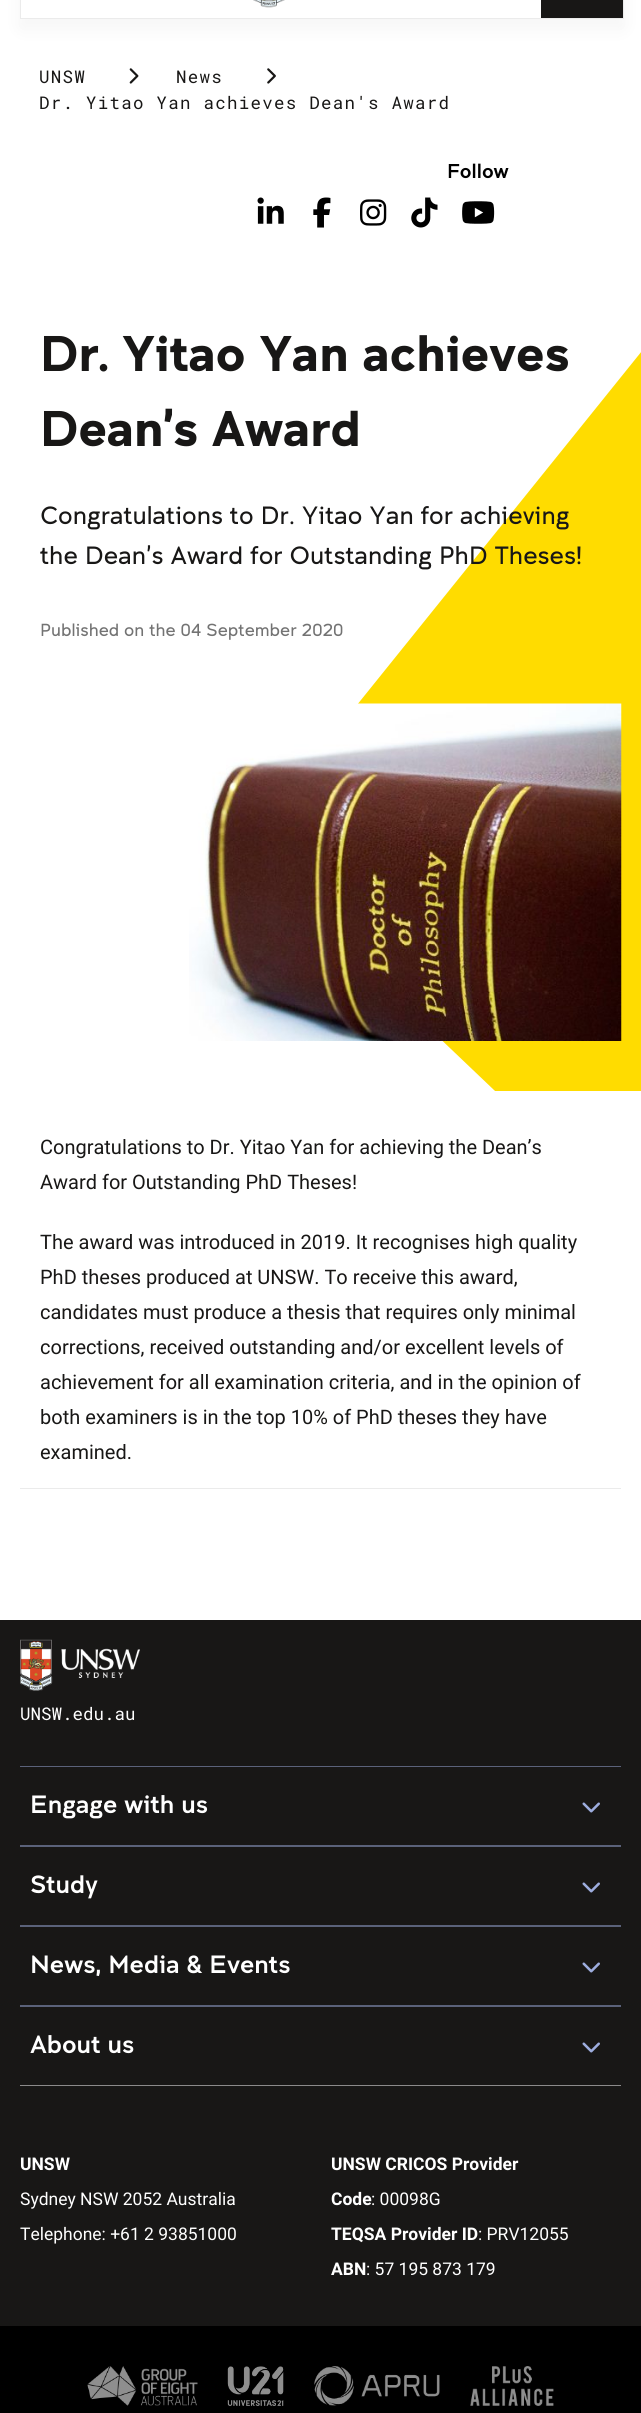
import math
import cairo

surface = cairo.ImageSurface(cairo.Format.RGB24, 641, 2413)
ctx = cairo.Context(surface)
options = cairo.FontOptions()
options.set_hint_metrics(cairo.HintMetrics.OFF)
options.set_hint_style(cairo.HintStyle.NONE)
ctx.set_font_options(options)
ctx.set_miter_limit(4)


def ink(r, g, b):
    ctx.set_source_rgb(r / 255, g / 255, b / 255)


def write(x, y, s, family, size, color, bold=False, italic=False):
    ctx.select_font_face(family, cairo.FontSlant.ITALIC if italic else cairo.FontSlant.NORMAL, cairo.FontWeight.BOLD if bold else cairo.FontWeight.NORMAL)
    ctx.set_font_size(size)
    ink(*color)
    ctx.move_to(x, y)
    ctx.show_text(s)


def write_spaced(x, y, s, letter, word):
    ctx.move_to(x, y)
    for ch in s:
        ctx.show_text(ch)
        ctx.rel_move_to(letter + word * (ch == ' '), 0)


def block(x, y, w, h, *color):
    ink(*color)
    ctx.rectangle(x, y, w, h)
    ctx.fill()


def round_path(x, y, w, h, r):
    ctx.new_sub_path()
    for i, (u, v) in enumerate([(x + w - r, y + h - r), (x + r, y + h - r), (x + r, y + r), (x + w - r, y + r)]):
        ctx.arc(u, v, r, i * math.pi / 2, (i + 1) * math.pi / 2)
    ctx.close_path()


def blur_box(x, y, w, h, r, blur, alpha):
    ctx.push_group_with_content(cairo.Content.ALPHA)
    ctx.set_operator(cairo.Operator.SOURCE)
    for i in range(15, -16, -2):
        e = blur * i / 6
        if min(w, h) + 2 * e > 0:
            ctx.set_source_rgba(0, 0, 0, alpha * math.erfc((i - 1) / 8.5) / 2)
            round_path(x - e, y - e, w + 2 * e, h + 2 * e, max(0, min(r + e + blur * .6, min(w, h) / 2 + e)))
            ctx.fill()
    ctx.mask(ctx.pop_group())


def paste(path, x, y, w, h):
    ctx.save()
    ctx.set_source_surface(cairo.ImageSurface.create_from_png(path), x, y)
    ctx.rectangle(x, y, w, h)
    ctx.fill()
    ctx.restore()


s1 = dict(family="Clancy", size=20, color=(0, 0, 0))
s2 = dict(family="Clancy", size=50, color=(24, 23, 22), bold=True)
s3 = dict(family="Clancy Light", size=25, color=(24, 23, 22))
s4 = dict(family="Clancy Light", size=17.5, color=(115, 115, 115))
s5 = dict(family="Roboto", size=20, color=(24, 23, 22))
s6 = dict(family="Roboto Mono", size=17.5, color=(255, 255, 255))
s7 = dict(family="Clancy", size=25, color=(255, 255, 255))
s8 = dict(family="Roboto", size=17.5, color=(255, 255, 255), bold=True)
s9 = dict(family="Roboto", size=17.5, color=(255, 255, 255))

ink(255, 255, 255)
ctx.paint()
ink(0, 0, 0)
blur_box(20, -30, 604, 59, 0, 10, 0.04)
block(21, 0, 520, 18, 255, 255, 255)
ctx.rectangle(20.5, -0.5, 603, 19)
ink(235, 235, 235)
ctx.set_line_width(1)
ctx.stroke()
paste("pic1.png", 253, 0, 32, 8)
block(541, 0, 82, 18, 24, 23, 22)
ctx.select_font_face("Roboto Mono")
ctx.set_font_size(17.5)
write_spaced(39, 83, "UNSW", 1.25, 0)
paste("pic2.png", 129, 68, 10, 16)
write_spaced(176, 83, "News", 1.25, 0)
paste("pic3.png", 267, 68, 9, 16)
write_spaced(39, 109, "Dr. Yitao Yan achieves Dean's Award", 1.25, 0)
write(447, 178, "Follow", **s1)
paste("pic4.png", 257, 197, 27, 27)
paste("pic5.png", 313, 197, 18, 31)
paste("pic6.png", 360, 199, 27, 27)
paste("pic7.png", 411, 197, 27, 31)
paste("pic8.png", 462, 201, 33, 23)
ctx.save()
ctx.rectangle(95, 59, 546, 1032)
ctx.clip()
ink(255, 220, 0)
ctx.new_path()
ctx.move_to(241, 849)
ctx.line_to(558, 1151)
ctx.line_to(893, 966)
ctx.line_to(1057, 263)
ctx.line_to(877, 59)
ctx.close_path()
ctx.fill()
ctx.restore()
write(40, 371, "Dr. Yitao Yan achieves", **s2)
write(40, 446, "Dean's Award", **s2)
write(40, 524, "Congratulations to Dr. Yitao Yan for achieving", **s3)
write(40, 564, "the Dean’s Award for Outstanding PhD Theses!", **s3)
write(40, 636, "Published on the 04 September 2020", **s4)
paste("pic9.png", 189, 703, 433, 338)
write(40, 1154, "Congratulations to Dr. Yitao Yan for achieving the Dean’s", **s5)
write(40, 1189, "Award for Outstanding PhD Theses!", **s5)
write(40, 1249, "The award was introduced in 2019. It recognises high quality", **s5)
write(40, 1284, "PhD theses produced at UNSW. To receive this award,", **s5)
write(40, 1319, "candidates must produce a thesis that requires only minimal", **s5)
write(40, 1354, "corrections, received outstanding and/or excellent levels of", **s5)
write(40, 1389, "achievement for all examination criteria, and in the opinion of", **s5)
write(40, 1424, "both examiners is in the top 10% of PhD theses they have", **s5)
write(40, 1459, "examined.", **s5)
block(20, 1488, 601, 1, 235, 235, 235)
block(0, 1620, 641, 706, 24, 23, 22)
paste("pic10.png", 20, 1639, 120, 52)
write(20, 1720, "UNSW.edu.au", **s6)
block(20, 1766, 601, 1, 91, 98, 122)
block(20, 1845, 601, 2, 91, 98, 122)
write(30, 1813, "Engage with us", **s7)
paste("pic11.png", 582, 1802, 18, 11)
block(20, 1925, 601, 2, 91, 98, 122)
write(30, 1893, "Study", **s7)
paste("pic11.png", 582, 1882, 18, 11)
block(20, 2005, 601, 2, 91, 98, 122)
write(30, 1973, "News, Media & Events", **s7)
paste("pic11.png", 582, 1962, 18, 11)
block(20, 2085, 601, 1, 140, 139, 139)
write(30, 2053, "About us", **s7)
paste("pic11.png", 582, 2042, 18, 11)
write(20, 2170, "UNSW", **s8)
write(20, 2205, "Sydney NSW 2052 Australia", **s9)
write(20, 2240, "Telephone: +61 2 93851000", **s9)
write(331, 2170, "UNSW CRICOS Provider", **s8)
write(331, 2205, "Code", **s8)
write(371, 2205, ": 00098G", **s9)
write(331, 2240, "TEQSA Provider ID", **s8)
write(478, 2240, ": PRV12055", **s9)
write(331, 2275, "ABN", **s8)
write(366, 2275, ": 57 195 873 179", **s9)
block(0, 2326, 641, 87, 0, 0, 0)
paste("pic12.png", 87, 2366, 111, 40)
paste("pic13.png", 227, 2366, 57, 40)
paste("pic14.png", 314, 2366, 126, 40)
paste("pic15.png", 470, 2366, 84, 40)
surface.write_to_png("screenshot.png")
